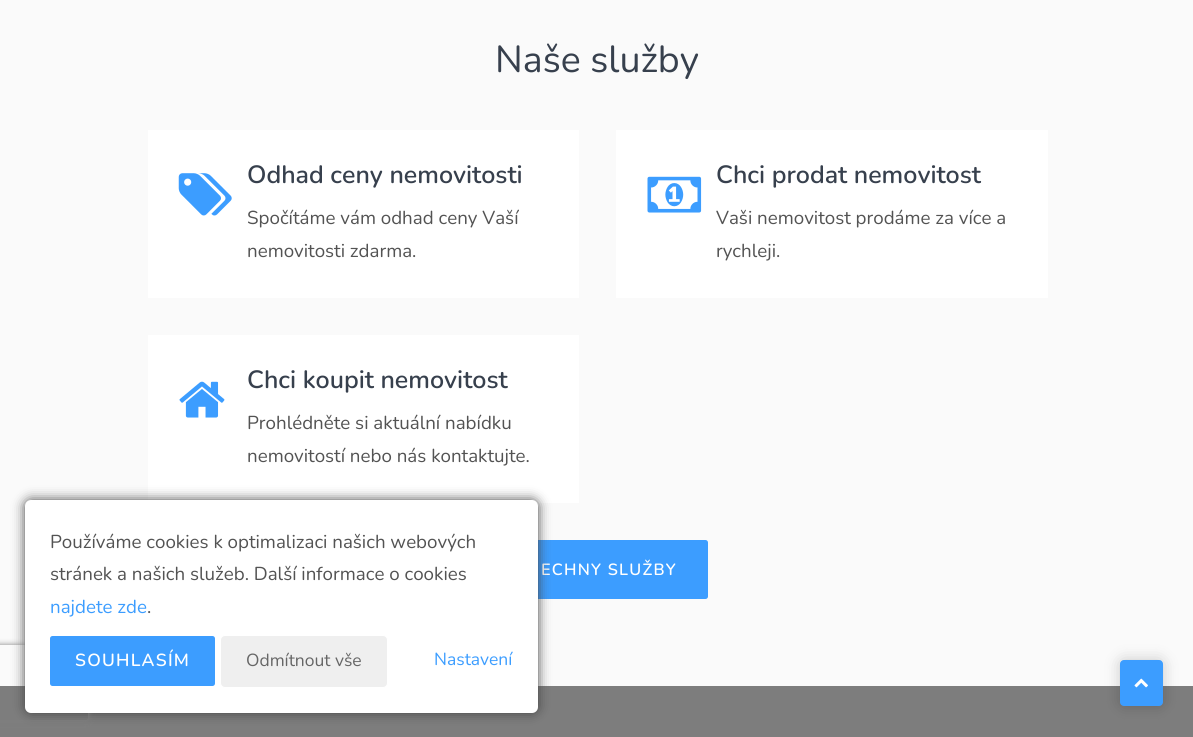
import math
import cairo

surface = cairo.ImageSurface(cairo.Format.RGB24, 1193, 737)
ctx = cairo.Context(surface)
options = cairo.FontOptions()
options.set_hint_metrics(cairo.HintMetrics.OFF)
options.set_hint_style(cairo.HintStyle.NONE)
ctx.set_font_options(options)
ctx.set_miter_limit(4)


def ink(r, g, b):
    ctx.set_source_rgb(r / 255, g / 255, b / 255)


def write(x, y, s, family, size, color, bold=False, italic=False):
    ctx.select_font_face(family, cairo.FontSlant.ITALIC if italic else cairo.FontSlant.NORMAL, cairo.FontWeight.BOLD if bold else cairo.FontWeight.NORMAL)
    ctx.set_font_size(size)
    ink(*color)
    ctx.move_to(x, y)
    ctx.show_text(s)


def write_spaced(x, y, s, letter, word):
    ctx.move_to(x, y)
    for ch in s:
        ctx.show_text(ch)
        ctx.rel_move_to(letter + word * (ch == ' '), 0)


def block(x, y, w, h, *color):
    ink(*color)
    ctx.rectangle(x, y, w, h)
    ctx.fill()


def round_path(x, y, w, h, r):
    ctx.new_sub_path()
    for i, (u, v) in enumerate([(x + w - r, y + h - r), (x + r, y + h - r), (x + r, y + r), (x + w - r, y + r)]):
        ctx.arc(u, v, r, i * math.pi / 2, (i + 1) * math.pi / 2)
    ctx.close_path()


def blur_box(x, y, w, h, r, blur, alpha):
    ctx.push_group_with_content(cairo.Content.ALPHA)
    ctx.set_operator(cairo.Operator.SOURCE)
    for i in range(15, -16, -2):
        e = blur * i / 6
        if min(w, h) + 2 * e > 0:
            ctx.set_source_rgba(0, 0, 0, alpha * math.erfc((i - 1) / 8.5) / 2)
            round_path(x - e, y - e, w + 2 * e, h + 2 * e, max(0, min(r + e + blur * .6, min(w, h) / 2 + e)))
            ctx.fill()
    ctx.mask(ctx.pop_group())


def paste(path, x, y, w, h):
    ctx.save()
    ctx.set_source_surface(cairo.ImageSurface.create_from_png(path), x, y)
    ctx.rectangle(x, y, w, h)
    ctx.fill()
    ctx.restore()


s1 = dict(family="Nunito", size=37.5, color=(55, 64, 77))
s2 = dict(family="Nunito SemiBold", size=25, color=(55, 64, 77))
s3 = dict(family="Nunito", size=18.75, color=(83, 83, 83))
s4 = dict(family="Nunito", size=18.75, color=(60, 157, 255))
s5 = dict(family="Nunito", size=17.5, color=(102, 102, 102))
s6 = dict(family="Nunito", size=17.5, color=(60, 157, 255))

ink(250, 250, 250)
ctx.paint()
write(495, 72, "Naše služby", **s1)
block(148, 130, 431, 168, 255, 255, 255)
paste("pic1.png", 178, 173, 54, 43)
write(247, 183, "Odhad ceny nemovitosti", **s2)
write(247, 224, "Spočítáme vám odhad ceny Vaší", **s3)
write(247, 257, "nemovitosti zdarma.", **s3)
block(616, 130, 432, 168, 255, 255, 255)
paste("pic2.png", 647, 176, 55, 37)
write(716, 183, "Chci prodat nemovitost", **s2)
write(716, 224, "Vaši nemovitost prodáme za více a", **s3)
write(716, 257, "rychleji.", **s3)
block(148, 335, 431, 168, 255, 255, 255)
paste("pic3.png", 179, 381, 46, 37)
write(247, 388, "Chci koupit nemovitost", **s2)
write(247, 429, "Prohlédněte si aktuální nabídku", **s3)
write(247, 462, "nemovitostí nebo nás kontaktujte.", **s3)
ink(60, 157, 255)
round_path(486, 540, 222, 59, 2.5)
ctx.fill()
ctx.select_font_face("Nunito SemiBold")
ctx.set_font_size(16.25)
ink(255, 255, 255)
write_spaced(541, 575, "ECHNY SLUŽBY", 1.25, 0)
block(0, 686, 1193, 51, 125, 125, 125)
ink(68, 68, 68)
blur_box(25, 500, 513, 213, 6, 6, 1)
ctx.save()
ctx.set_fill_rule(cairo.FillRule.EVEN_ODD)
ctx.new_path()
ctx.move_to(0, 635)
ctx.line_to(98, 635)
ctx.line_to(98, 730)
ctx.line_to(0, 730)
ctx.close_path()
ctx.move_to(-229.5, 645)
ctx.line_to(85.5, 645)
ctx.curve_to(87, 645, 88, 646, 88, 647.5)
ctx.line_to(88, 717.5)
ctx.curve_to(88, 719, 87, 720, 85.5, 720)
ctx.line_to(-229.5, 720)
ctx.curve_to(-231, 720, -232, 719, -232, 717.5)
ctx.line_to(-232, 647.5)
ctx.curve_to(-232, 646, -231, 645, -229.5, 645)
ctx.close_path()
ctx.clip()
ink(128, 128, 128)
blur_box(-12, 645, 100, 75, 2.5, 3, 1)
ctx.restore()
ink(255, 255, 255)
round_path(25, 500, 513, 213, 6)
ctx.fill()
write(50, 548, "Používáme cookies k optimalizaci našich webových", **s3)
write(50, 580, "stránek a našich služeb. Další informace o cookies", **s3)
write(50, 613, "najdete zde", **s4)
write(147, 613, ".", **s3)
ink(60, 157, 255)
round_path(50, 636, 165, 50, 2.5)
ctx.fill()
ctx.select_font_face("Nunito SemiBold")
ctx.set_font_size(17.5)
ink(255, 255, 255)
write_spaced(75, 666, "SOUHLASÍM", 1.25, 0)
ink(239, 239, 239)
round_path(220.5, 635.5, 167, 52, 4.5)
ctx.fill_preserve()
ink(255, 255, 255)
ctx.set_line_width(1)
ctx.stroke()
write(246, 666, "Odmítnout vše", **s5)
write(434, 665, "Nastavení", **s6)
ink(0, 0, 0)
blur_box(1120, 660, 43, 46, 4, 7.5, 0.2)
ink(60, 157, 255)
round_path(1120, 660, 43, 46, 4)
ctx.fill()
paste("pic4.png", 1134, 678, 14, 10)
surface.write_to_png("screenshot.png")
